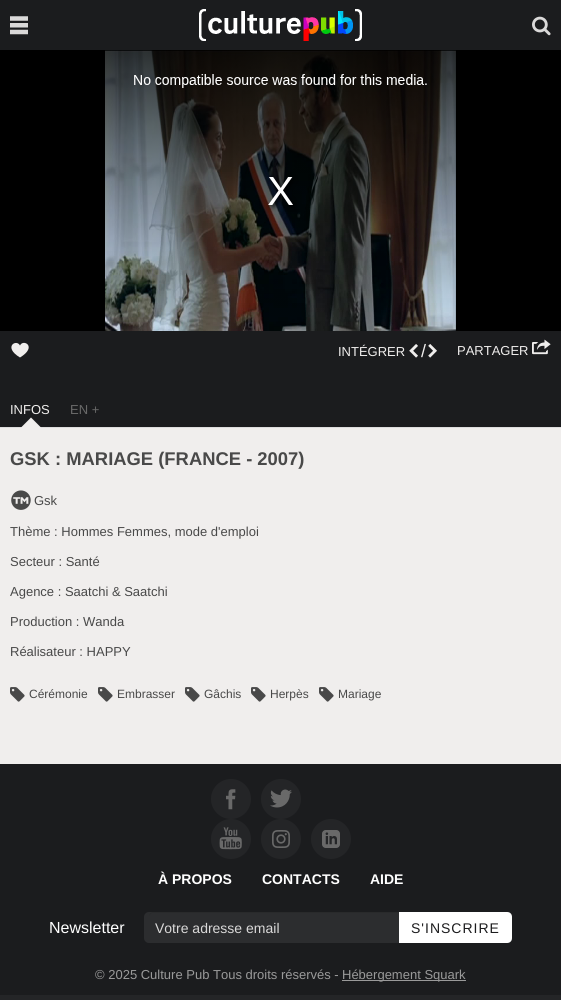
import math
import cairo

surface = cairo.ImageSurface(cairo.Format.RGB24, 561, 1000)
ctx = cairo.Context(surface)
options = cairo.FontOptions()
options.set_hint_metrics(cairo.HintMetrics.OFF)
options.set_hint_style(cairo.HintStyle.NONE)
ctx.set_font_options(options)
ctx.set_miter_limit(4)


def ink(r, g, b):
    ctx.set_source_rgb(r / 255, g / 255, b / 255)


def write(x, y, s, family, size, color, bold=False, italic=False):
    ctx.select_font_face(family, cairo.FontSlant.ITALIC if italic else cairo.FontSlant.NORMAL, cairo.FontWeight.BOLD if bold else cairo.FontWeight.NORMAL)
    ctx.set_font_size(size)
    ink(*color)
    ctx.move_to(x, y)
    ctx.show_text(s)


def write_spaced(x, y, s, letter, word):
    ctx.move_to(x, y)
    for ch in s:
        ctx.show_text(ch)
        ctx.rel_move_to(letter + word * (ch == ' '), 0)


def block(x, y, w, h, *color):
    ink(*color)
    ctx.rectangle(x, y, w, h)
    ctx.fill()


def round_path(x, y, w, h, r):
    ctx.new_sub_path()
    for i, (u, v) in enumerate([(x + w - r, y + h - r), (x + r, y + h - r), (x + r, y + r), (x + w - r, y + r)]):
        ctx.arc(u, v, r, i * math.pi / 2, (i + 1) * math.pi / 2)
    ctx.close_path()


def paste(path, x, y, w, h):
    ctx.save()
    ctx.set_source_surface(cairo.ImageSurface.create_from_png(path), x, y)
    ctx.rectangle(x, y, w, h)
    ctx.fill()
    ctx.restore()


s1 = dict(family="Liberation Sans", size=13, color=(240, 238, 237))
s2 = dict(family="Liberation Sans", size=18, color=(240, 238, 237))
s3 = dict(family="Liberation Sans", size=13, color=(105, 105, 105))
s4 = dict(family="Liberation Sans", size=18.4, color=(73, 73, 73), bold=True)
s5 = dict(family="Liberation Sans", size=13, color=(73, 73, 73))
s6 = dict(family="Liberation Sans", size=12, color=(73, 73, 73))
s7 = dict(family="Liberation Sans", size=14, color=(255, 255, 255), bold=True)
s8 = dict(family="Liberation Sans", size=16, color=(255, 255, 255))
s9 = dict(family="Liberation Sans", size=14, color=(218, 217, 217))
s10 = dict(family="Liberation Sans", size=13, color=(154, 154, 154))

ink(36, 37, 39)
ctx.paint()
paste("pic4.png", 0, 50, 561, 281)
ctx.set_source_rgba(0, 0, 0, 0.5)
ctx.rectangle(105, 50, 351, 1)
ctx.fill()
block(0, 0, 561, 50, 27, 28, 30)
paste("pic1.png", 10, 16, 18, 19)
paste("pic2.png", 199, 9, 163, 32)
paste("pic3.png", 532, 16, 19, 20)
block(0, 428, 561, 336, 240, 238, 237)
block(0, 331, 561, 96, 27, 28, 30)
ink(240, 238, 237)
ctx.new_path()
ctx.move_to(20, 345.5)
ctx.curve_to(16.5, 338.5, 2.5, 347, 20, 357.5)
ctx.curve_to(38, 346.5, 23, 338.5, 20, 345.5)
ctx.close_path()
ctx.fill()
write(338, 356, "INTÉGRER", **s1)
paste("pic5.png", 409, 344, 9, 14)
write(421, 357, "/", **s2)
paste("pic6.png", 428, 344, 9, 14)
write(457, 355, "PARTAGER", **s1)
paste("pic7.png", 532, 339, 19, 16)
block(0, 427, 561, 1, 221, 221, 221)
write(10, 414, "INFOS", **s1)
ctx.new_path()
ctx.move_to(21, 427.5)
ctx.line_to(31, 417.5)
ctx.line_to(41, 427.5)
ctx.line_to(31, 437.5)
ctx.close_path()
ctx.fill()
write(70, 414, "EN +", **s3)
write(10, 465, "GSK : MARIAGE (FRANCE - 2007)", **s4)
paste("pic8.png", 11, 490, 20, 20)
write(34, 505, "Gsk", **s5)
write(10, 536, "Thème : Hommes Femmes, mode d'emploi", **s5)
write(10, 566, "Secteur : Santé", **s5)
write(10, 596, "Agence : Saatchi & Saatchi", **s5)
write(10, 626, "Production : Wanda", **s5)
write(10, 656, "Réalisateur : HAPPY", **s5)
paste("pic9.png", 10, 687, 15, 15)
write(29, 698, "Cérémonie", **s6)
paste("pic9.png", 98, 687, 15, 15)
write(117, 698, "Embrasser", **s6)
paste("pic9.png", 185, 687, 15, 15)
write(204, 698, "Gâchis", **s6)
paste("pic9.png", 251, 687, 15, 15)
write(270, 698, "Herpès", **s6)
paste("pic9.png", 319, 687, 15, 15)
write(338, 698, "Mariage", **s6)
block(0, 764, 561, 231, 27, 28, 30)
ink(36, 37, 39)
ctx.new_path()
ctx.arc(231, 799, 20, 0, 2 * math.pi)
ctx.fill()
paste("pic10.png", 226, 789, 10, 21)
ctx.arc(281, 799, 20, 0, 2 * math.pi)
ctx.fill()
paste("pic11.png", 270, 789, 22, 19)
ctx.arc(231, 839, 20, 0, 2 * math.pi)
ctx.fill()
paste("pic12.png", 219, 827, 23, 23)
ctx.arc(281, 839, 20, 0, 2 * math.pi)
ctx.fill()
paste("pic13.png", 272, 830, 18, 18)
ctx.arc(331, 839, 20, 0, 2 * math.pi)
ctx.fill()
paste("pic14.png", 322, 830, 18, 18)
write(158, 884, "À PROPOS", **s7)
write(262, 884, "CONTACTS", **s7)
write(370, 884, "AIDE", **s7)
write(49, 933, "Newsletter", **s8)
ink(44, 45, 47)
round_path(144, 912, 368, 31, 5)
ctx.fill()
ink(41, 42, 43)
ctx.new_path()
ctx.move_to(153, 913)
ctx.line_to(400, 913)
ctx.curve_to(402, 913, 404, 915, 404, 917)
ctx.line_to(404, 916)
ctx.curve_to(404, 914, 402, 912, 400, 912)
ctx.line_to(153, 912)
ctx.curve_to(151, 912, 149, 914, 149, 916)
ctx.line_to(149, 917)
ctx.curve_to(149, 915, 151, 913, 153, 913)
ctx.close_path()
ctx.fill()
write(155, 933, "Votre adresse email", **s9)
ink(255, 255, 255)
ctx.new_path()
ctx.move_to(399, 912)
ctx.line_to(507, 912)
ctx.curve_to(510, 912, 512, 914, 512, 917)
ctx.line_to(512, 938)
ctx.curve_to(512, 941, 510, 943, 507, 943)
ctx.line_to(399, 943)
ctx.close_path()
ctx.fill()
ink(28, 28, 30)
write_spaced(411, 933, "S'INSCRIRE", 1, 0)
write(95, 979, "© 2025 Culture Pub Tous droits réservés -", **s10)
block(342, 980, 124, 1, 154, 154, 154)
write(342, 979, "Hébergement Squark", **s10)
surface.write_to_png("screenshot.png")
